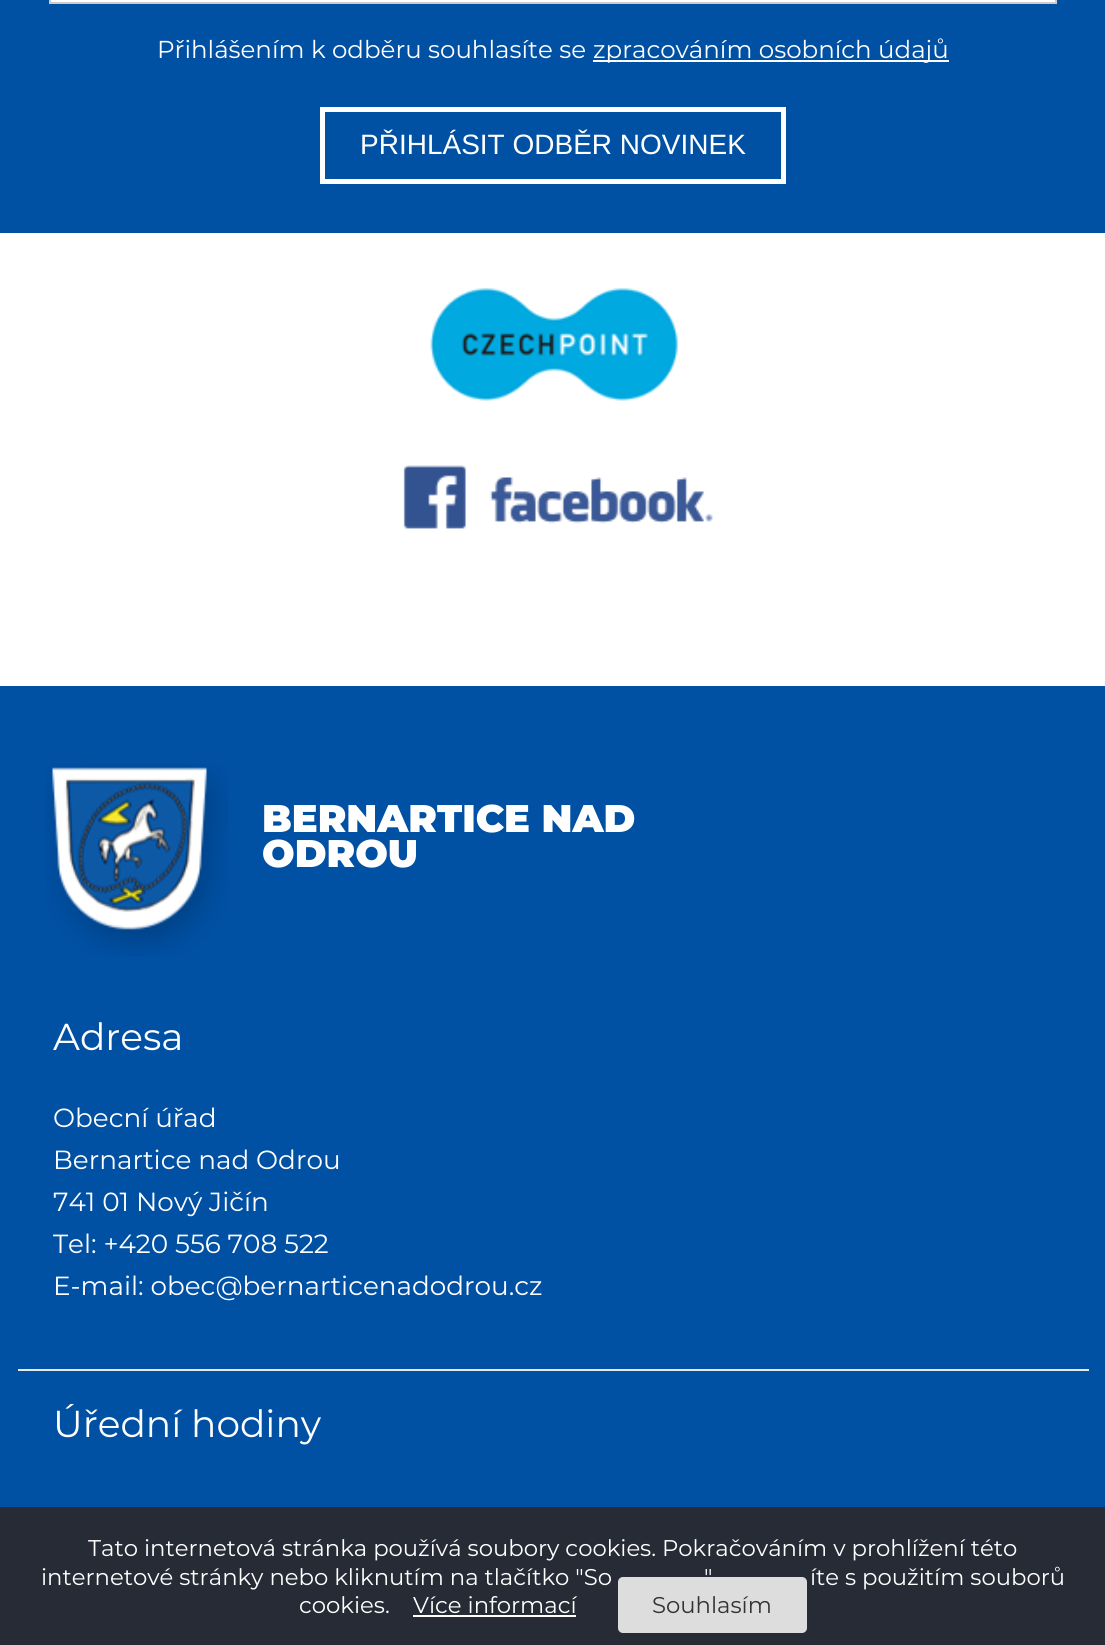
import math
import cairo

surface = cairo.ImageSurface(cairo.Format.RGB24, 1105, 1645)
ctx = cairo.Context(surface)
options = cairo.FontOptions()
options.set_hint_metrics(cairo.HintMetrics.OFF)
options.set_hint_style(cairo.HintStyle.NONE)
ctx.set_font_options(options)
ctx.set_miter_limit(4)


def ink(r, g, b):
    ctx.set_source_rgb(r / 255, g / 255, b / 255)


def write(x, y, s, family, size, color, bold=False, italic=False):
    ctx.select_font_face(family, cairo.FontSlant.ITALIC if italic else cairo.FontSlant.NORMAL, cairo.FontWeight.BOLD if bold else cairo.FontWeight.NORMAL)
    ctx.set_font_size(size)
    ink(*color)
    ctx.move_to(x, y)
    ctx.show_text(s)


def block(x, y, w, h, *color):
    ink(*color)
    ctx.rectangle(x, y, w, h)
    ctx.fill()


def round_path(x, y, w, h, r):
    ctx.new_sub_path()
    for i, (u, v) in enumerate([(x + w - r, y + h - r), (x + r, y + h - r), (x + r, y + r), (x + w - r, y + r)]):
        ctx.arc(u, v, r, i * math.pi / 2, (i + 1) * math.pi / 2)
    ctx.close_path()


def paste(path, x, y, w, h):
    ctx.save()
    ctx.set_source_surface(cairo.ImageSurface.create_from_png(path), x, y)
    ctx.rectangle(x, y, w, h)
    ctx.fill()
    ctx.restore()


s1 = dict(family="Montserrat", size=24.5, color=(255, 255, 255))
s2 = dict(family="Liberation Sans", size=28, color=(255, 255, 255))
s3 = dict(family="Montserrat Black", size=38.5, color=(255, 255, 255))
s4 = dict(family="Montserrat", size=37.5, color=(255, 255, 255))
s5 = dict(family="Montserrat", size=26.25, color=(255, 255, 255))
s6 = dict(family="Montserrat", size=22.75, color=(255, 255, 255))
s7 = dict(family="Montserrat", size=22.75, color=(51, 51, 51))

ink(255, 255, 255)
ctx.paint()
block(0, 0, 1105, 233, 0, 80, 164)
ink(255, 255, 255)
ctx.rectangle(50, -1, 1006, 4)
ctx.fill_preserve()
ink(204, 204, 204)
ctx.stroke()
write(157, 58, "Přihlášením k odběru souhlasíte se", **s1)
block(593, 60, 356, 2, 255, 255, 255)
write(593, 58, "zpracováním osobních údajů", **s1)
ctx.rectangle(322.5, 109.5, 461, 72)
ctx.set_line_width(5)
ctx.stroke()
write(360, 154, "PŘIHLÁSIT ODBĚR NOVINEK", **s2)
paste("pic1.png", 430, 288, 249, 113)
paste("pic2.png", 403, 465, 310, 64)
block(0, 686, 1105, 821, 0, 80, 164)
paste("pic3.png", 45, 764, 183, 192)
write(262, 832, "BERNARTICE NAD", **s3)
write(262, 867, "ODROU", **s3)
write(53, 1050, "Adresa", **s4)
write(53, 1127, "Obecní úřad", **s5)
write(53, 1169, "Bernartice nad Odrou", **s5)
write(53, 1211, "741 01 Nový Jičín", **s5)
write(53, 1253, "Tel: +420 556 708 522", **s5)
write(53, 1295, "E-mail: obec@bernarticenadodrou.cz", **s5)
block(18, 1369, 1071, 2, 232, 232, 232)
write(53, 1437, "Úřední hodiny", **s4)
block(0, 1507, 1105, 138, 39, 43, 53)
write(88, 1556, "Tato internetová stránka používá soubory cookies. Pokračováním v prohlížení této", **s6)
write(41, 1585, "internetové stránky nebo kliknutím na tlačítko \"So", **s6)
write(704, 1585, "\"", **s6)
write(810, 1585, "íte s použitím souborů", **s6)
write(299, 1613, "cookies.", **s6)
write(413, 1613, "Více informací", **s6)
block(413, 1615, 163, 2, 255, 255, 255)
ink(221, 221, 221)
round_path(618, 1577, 189, 56, 5)
ctx.fill()
write(652, 1613, "Souhlasím", **s7)
surface.write_to_png("screenshot.png")
